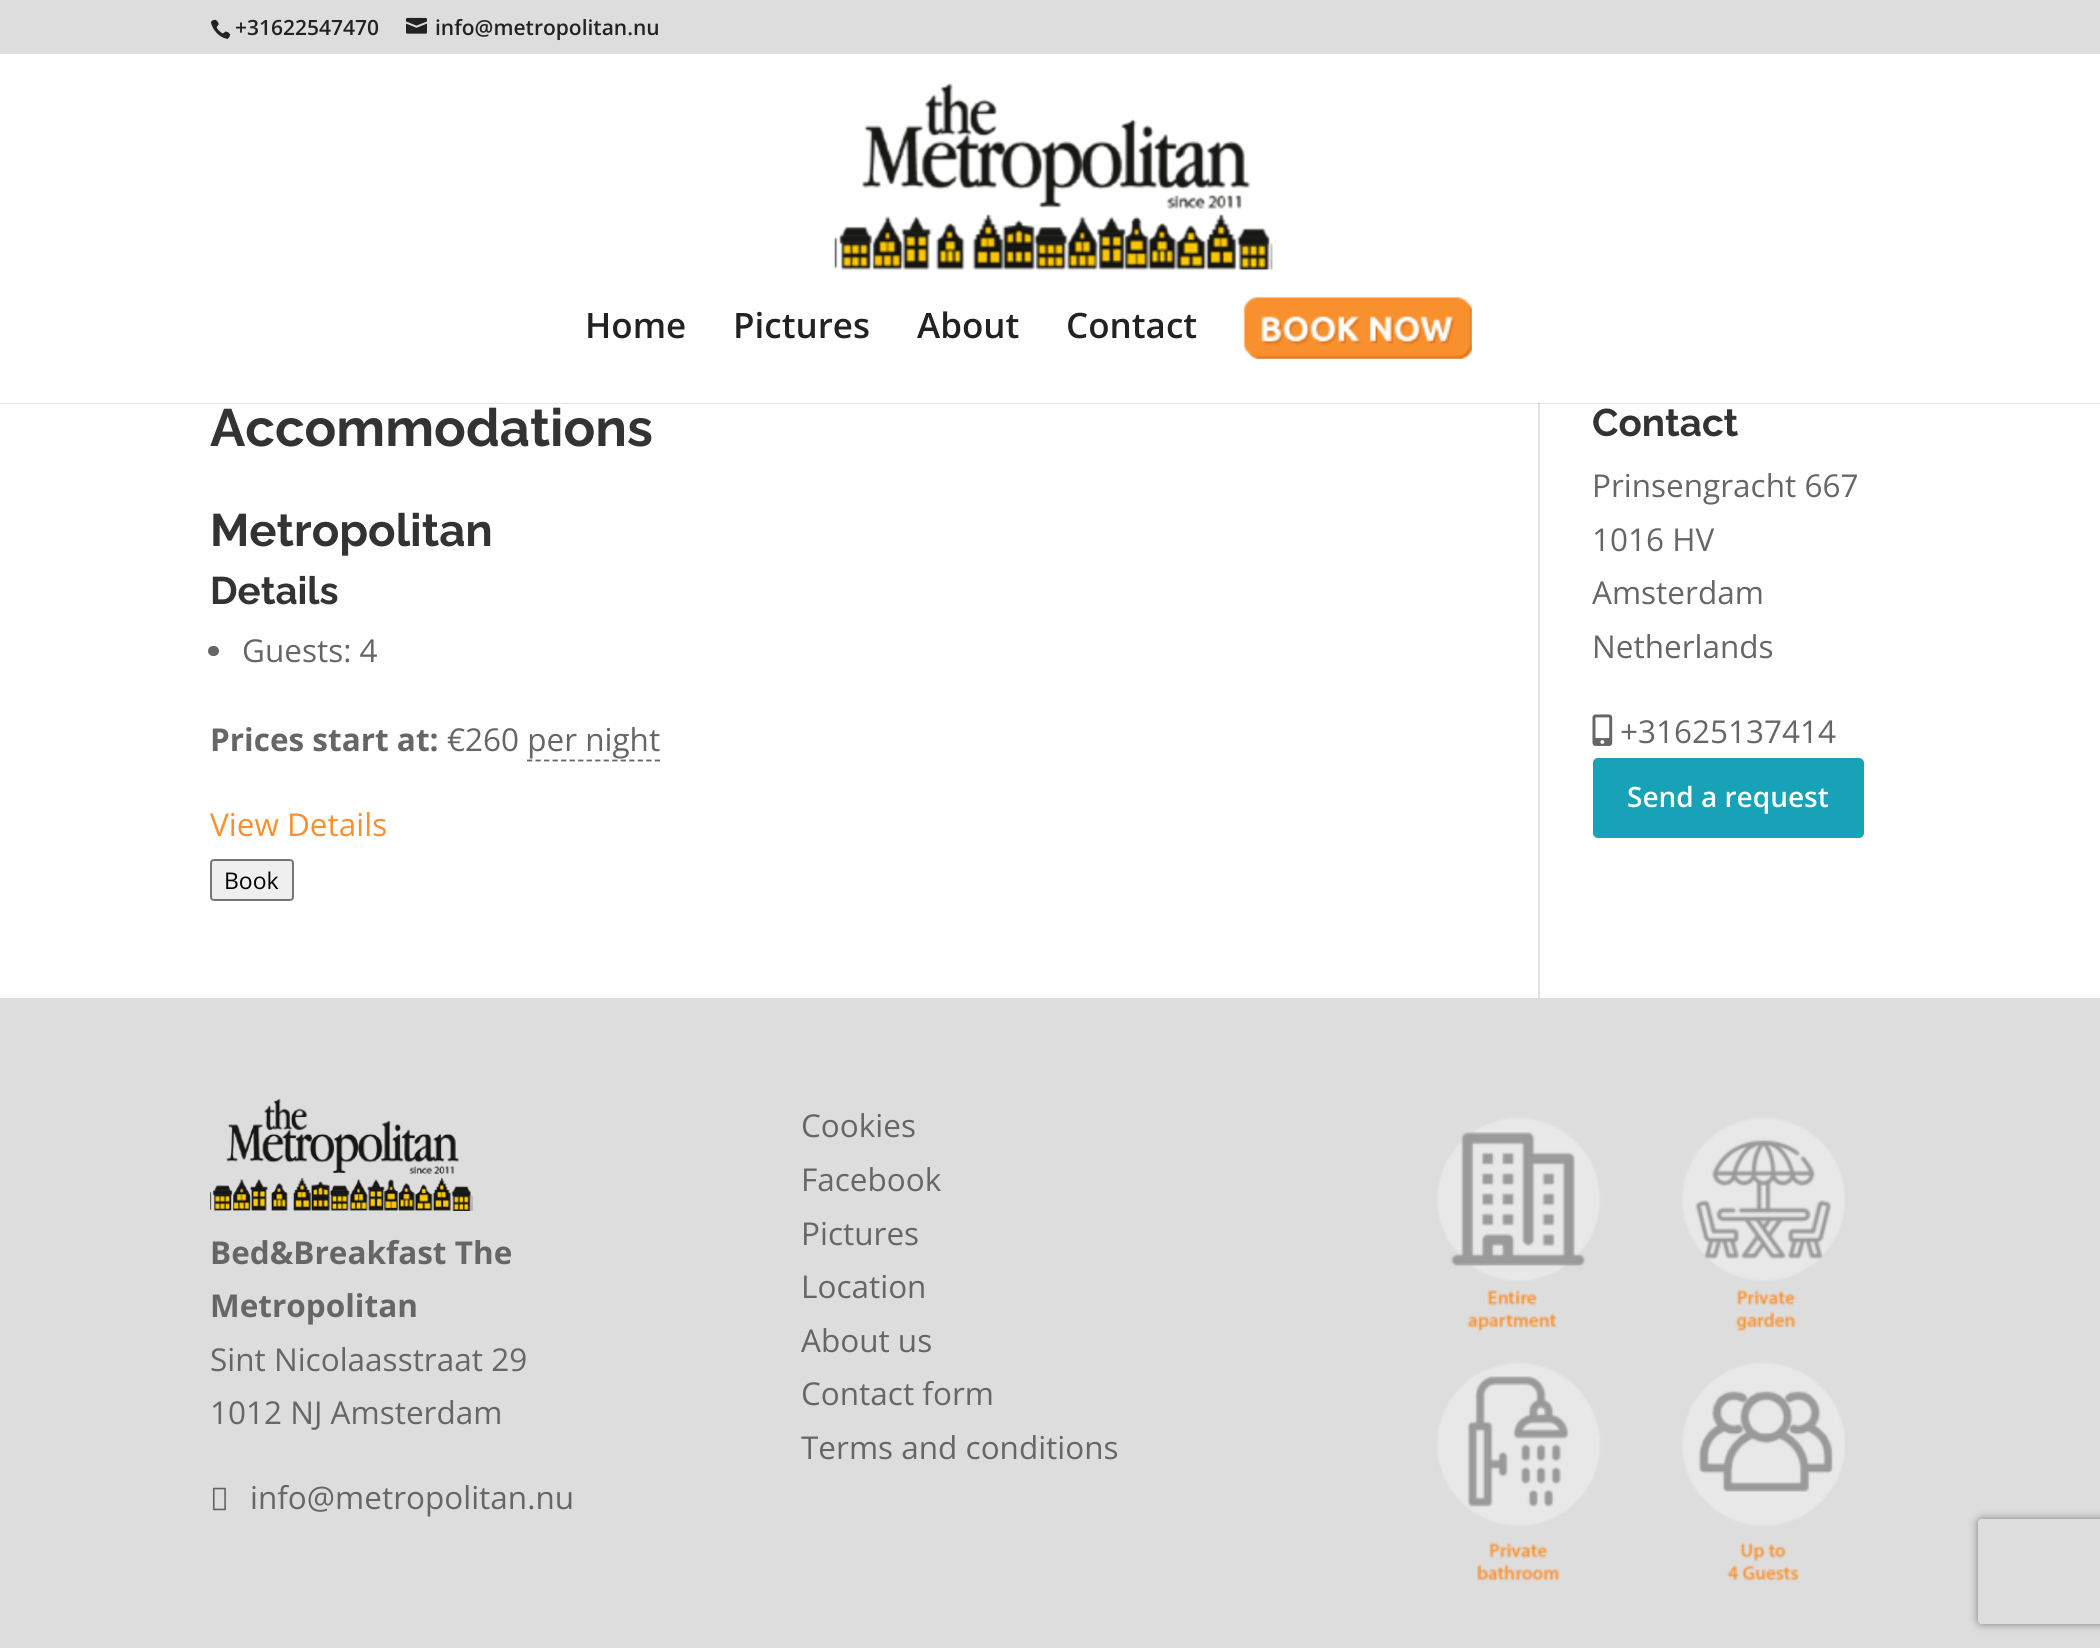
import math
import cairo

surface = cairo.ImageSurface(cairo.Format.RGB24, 2100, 1648)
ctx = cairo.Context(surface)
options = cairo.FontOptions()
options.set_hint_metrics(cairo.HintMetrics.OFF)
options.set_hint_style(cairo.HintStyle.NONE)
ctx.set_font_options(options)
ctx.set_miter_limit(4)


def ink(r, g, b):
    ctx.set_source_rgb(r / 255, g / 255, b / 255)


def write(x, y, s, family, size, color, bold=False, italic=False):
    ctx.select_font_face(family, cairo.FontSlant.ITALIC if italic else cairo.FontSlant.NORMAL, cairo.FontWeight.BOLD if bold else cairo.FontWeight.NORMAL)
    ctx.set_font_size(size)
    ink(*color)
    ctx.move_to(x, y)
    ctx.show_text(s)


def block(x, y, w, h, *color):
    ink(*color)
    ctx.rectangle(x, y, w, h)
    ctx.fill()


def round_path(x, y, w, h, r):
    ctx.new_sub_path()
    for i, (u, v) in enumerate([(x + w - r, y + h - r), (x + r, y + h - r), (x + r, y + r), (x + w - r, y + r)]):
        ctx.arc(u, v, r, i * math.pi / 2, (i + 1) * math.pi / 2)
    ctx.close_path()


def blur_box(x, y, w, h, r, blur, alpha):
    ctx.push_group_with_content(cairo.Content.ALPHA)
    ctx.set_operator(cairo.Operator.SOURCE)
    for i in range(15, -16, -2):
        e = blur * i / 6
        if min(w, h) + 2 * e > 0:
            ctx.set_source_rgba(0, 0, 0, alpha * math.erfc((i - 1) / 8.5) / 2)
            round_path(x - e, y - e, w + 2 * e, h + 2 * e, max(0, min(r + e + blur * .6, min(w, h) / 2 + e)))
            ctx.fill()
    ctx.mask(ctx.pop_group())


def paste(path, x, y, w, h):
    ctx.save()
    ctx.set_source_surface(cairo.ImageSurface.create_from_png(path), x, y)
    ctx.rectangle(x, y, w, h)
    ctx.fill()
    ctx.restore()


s1 = dict(family="Open Sans SemiBold", size=21, color=(34, 34, 34))
s2 = dict(family="Open Sans SemiBold", size=35, color=(34, 34, 34))
s3 = dict(family="Raleway Thin", size=52.5, color=(51, 51, 51))
s4 = dict(family="Raleway Thin", size=45.5, color=(51, 51, 51))
s5 = dict(family="Raleway Thin", size=38.5, color=(51, 51, 51))
s6 = dict(family="Open Sans", size=31.5, color=(102, 102, 102))
s7 = dict(family="Open Sans", size=31.5, color=(102, 102, 102), bold=True)
s8 = dict(family="Open Sans", size=31.5, color=(249, 144, 46))
s9 = dict(family="Open Sans", size=23, color=(0, 0, 0))
s10 = dict(family="Open Sans SemiBold", size=28, color=(255, 255, 255))

ink(255, 255, 255)
ctx.paint()
block(0, 403, 2100, 1, 230, 230, 230)
block(0, 0, 2100, 54, 221, 221, 221)
paste("pic1.png", 210, 19, 21, 20)
write(235, 35, "+31622547470", **s1)
paste("pic2.png", 406, 17, 21, 17)
write(435, 35, "info@metropolitan.nu", **s1)
paste("pic3.png", 834, 83, 439, 188)
write(585, 338, "Home", **s2)
write(733, 338, "Pictures", **s2)
write(917, 338, "About", **s2)
write(1066, 338, "Contact", **s2)
paste("pic4.png", 1243, 297, 229, 62)
block(1538, 404, 2, 594, 226, 226, 226)
block(1538, 403, 2, 1, 203, 203, 203)
write(210, 446, "Accommodations", **s3)
write(210, 546, "Metropolitan", **s4)
write(210, 604, "Details", **s5)
ink(102, 102, 102)
round_path(208, 646, 11, 10, 5)
ctx.fill()
write(242, 662, "Guests: 4", **s6)
write(210, 751, "Prices start at:", **s7)
write(447, 751, "€260 per night", **s6)
ctx.new_path()
ctx.move_to(527, 760.5)
ctx.line_to(660, 760.5)
ctx.set_line_width(1.8)
ctx.set_dash([5.25, 3.27])
ctx.stroke()
write(210, 836, "View Details", **s8)
ink(239, 239, 239)
round_path(211, 860, 82, 40, 3)
ctx.fill_preserve()
ink(118, 118, 118)
ctx.set_line_width(2)
ctx.set_dash([])
ctx.stroke()
write(224, 889, "Book", **s9)
write(1592, 436, "Contact", **s5)
write(1592, 497, "Prinsengracht 667", **s6)
write(1592, 551, "1016 HV", **s6)
write(1592, 604, "Amsterdam", **s6)
write(1592, 658, "Netherlands", **s6)
paste("pic5.png", 1592, 714, 21, 32)
write(1620, 743, "+31625137414", **s6)
ink(23, 162, 184)
round_path(1593, 758, 271, 80, 5)
ctx.fill()
write(1627, 807, "Send a request", **s10)
block(0, 998, 2100, 650, 221, 221, 221)
paste("pic6.png", 210, 1099, 263, 112)
write(210, 1264, "Bed&Breakfast The", **s7)
write(210, 1317, "Metropolitan", **s7)
write(210, 1371, "Sint Nicolaasstraat 29", **s6)
write(210, 1424, "1012 NJ Amsterdam", **s6)
paste("pic7.png", 212, 1487, 14, 24)
write(250, 1509, "info@metropolitan.nu", **s6)
write(801, 1137, "Cookies", **s6)
write(801, 1191, "Facebook", **s6)
write(801, 1245, "Pictures", **s6)
write(801, 1298, "Location", **s6)
write(801, 1352, "About us", **s6)
write(801, 1405, "Contact form", **s6)
write(801, 1459, "Terms and conditions", **s6)
paste("pic8.png", 1437, 1117, 408, 465)
ctx.save()
ctx.set_fill_rule(cairo.FillRule.EVEN_ODD)
ctx.new_path()
ctx.move_to(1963, 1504)
ctx.line_to(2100, 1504)
ctx.line_to(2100, 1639)
ctx.line_to(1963, 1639)
ctx.close_path()
ctx.move_to(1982, 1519)
ctx.line_to(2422, 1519)
ctx.curve_to(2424, 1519, 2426, 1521, 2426, 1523)
ctx.line_to(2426, 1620)
ctx.curve_to(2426, 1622, 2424, 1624, 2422, 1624)
ctx.line_to(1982, 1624)
ctx.curve_to(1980, 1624, 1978, 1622, 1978, 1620)
ctx.line_to(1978, 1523)
ctx.curve_to(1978, 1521, 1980, 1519, 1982, 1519)
ctx.close_path()
ctx.clip()
ink(128, 128, 128)
blur_box(1978, 1519, 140, 105, 4, 4.5, 1)
ctx.restore()
surface.write_to_png("screenshot.png")
